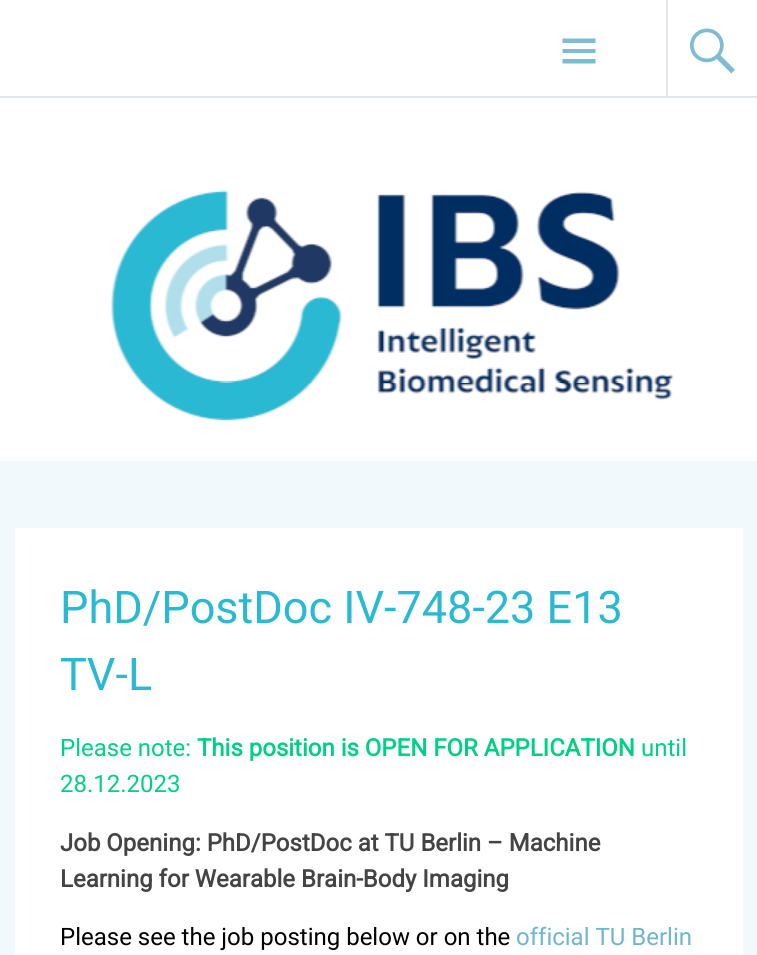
import math
import cairo

surface = cairo.ImageSurface(cairo.Format.RGB24, 757, 955)
ctx = cairo.Context(surface)
options = cairo.FontOptions()
options.set_hint_metrics(cairo.HintMetrics.OFF)
options.set_hint_style(cairo.HintStyle.NONE)
ctx.set_font_options(options)
ctx.set_miter_limit(4)


def ink(r, g, b):
    ctx.set_source_rgb(r / 255, g / 255, b / 255)


def write(x, y, s, family, size, color, bold=False, italic=False):
    ctx.select_font_face(family, cairo.FontSlant.ITALIC if italic else cairo.FontSlant.NORMAL, cairo.FontWeight.BOLD if bold else cairo.FontWeight.NORMAL)
    ctx.set_font_size(size)
    ink(*color)
    ctx.move_to(x, y)
    ctx.show_text(s)


def block(x, y, w, h, *color):
    ink(*color)
    ctx.rectangle(x, y, w, h)
    ctx.fill()


def paste(path, x, y, w, h):
    ctx.save()
    ctx.set_source_surface(cairo.ImageSurface.create_from_png(path), x, y)
    ctx.rectangle(x, y, w, h)
    ctx.fill()
    ctx.restore()


s1 = dict(family="Roboto", size=45, color=(41, 185, 211))
s2 = dict(family="Roboto", size=24, color=(0, 208, 132))
s3 = dict(family="Roboto", size=24, color=(0, 208, 132), bold=True)
s4 = dict(family="Roboto", size=24, color=(68, 68, 68), bold=True)
s5 = dict(family="Roboto", size=24, color=(0, 0, 0))
s6 = dict(family="Roboto", size=24, color=(112, 181, 206))

ink(255, 255, 255)
ctx.paint()
paste("pic1.png", 110, 190, 564, 231)
block(0, 96, 757, 2, 228, 231, 233)
ink(126, 188, 211)
ctx.new_path()
ctx.move_to(562.5, 63.5)
ctx.line_to(562.5, 59)
ctx.line_to(595.5, 59)
ctx.line_to(595.5, 63.5)
ctx.close_path()
ctx.move_to(562.5, 38.5)
ctx.line_to(595.5, 38.5)
ctx.line_to(595.5, 43)
ctx.line_to(562.5, 43)
ctx.close_path()
ctx.move_to(562.5, 53)
ctx.line_to(562.5, 49)
ctx.line_to(595.5, 49)
ctx.line_to(595.5, 53)
ctx.close_path()
ctx.fill()
block(666, 0, 2, 96, 228, 231, 233)
paste("pic2.png", 690, 28, 45, 46)
block(0, 461, 757, 494, 241, 249, 252)
block(15, 528, 728, 427, 255, 255, 255)
write(60, 623, "PhD/PostDoc IV-748-23 E13", **s1)
write(60, 690, "TV-L", **s1)
write(60, 756, "Please note:", **s2)
write(197, 756, "This position is OPEN FOR APPLICATION", **s3)
write(641, 756, "until", **s2)
write(60, 792, "28.12.2023", **s2)
write(60, 851, "Job Opening: PhD/PostDoc at TU Berlin – Machine", **s4)
write(60, 887, "Learning for Wearable Brain-Body Imaging", **s4)
write(60, 945, "Please see the job posting below or on the", **s5)
write(516, 945, "official TU Berlin", **s6)
surface.write_to_png("screenshot.png")
